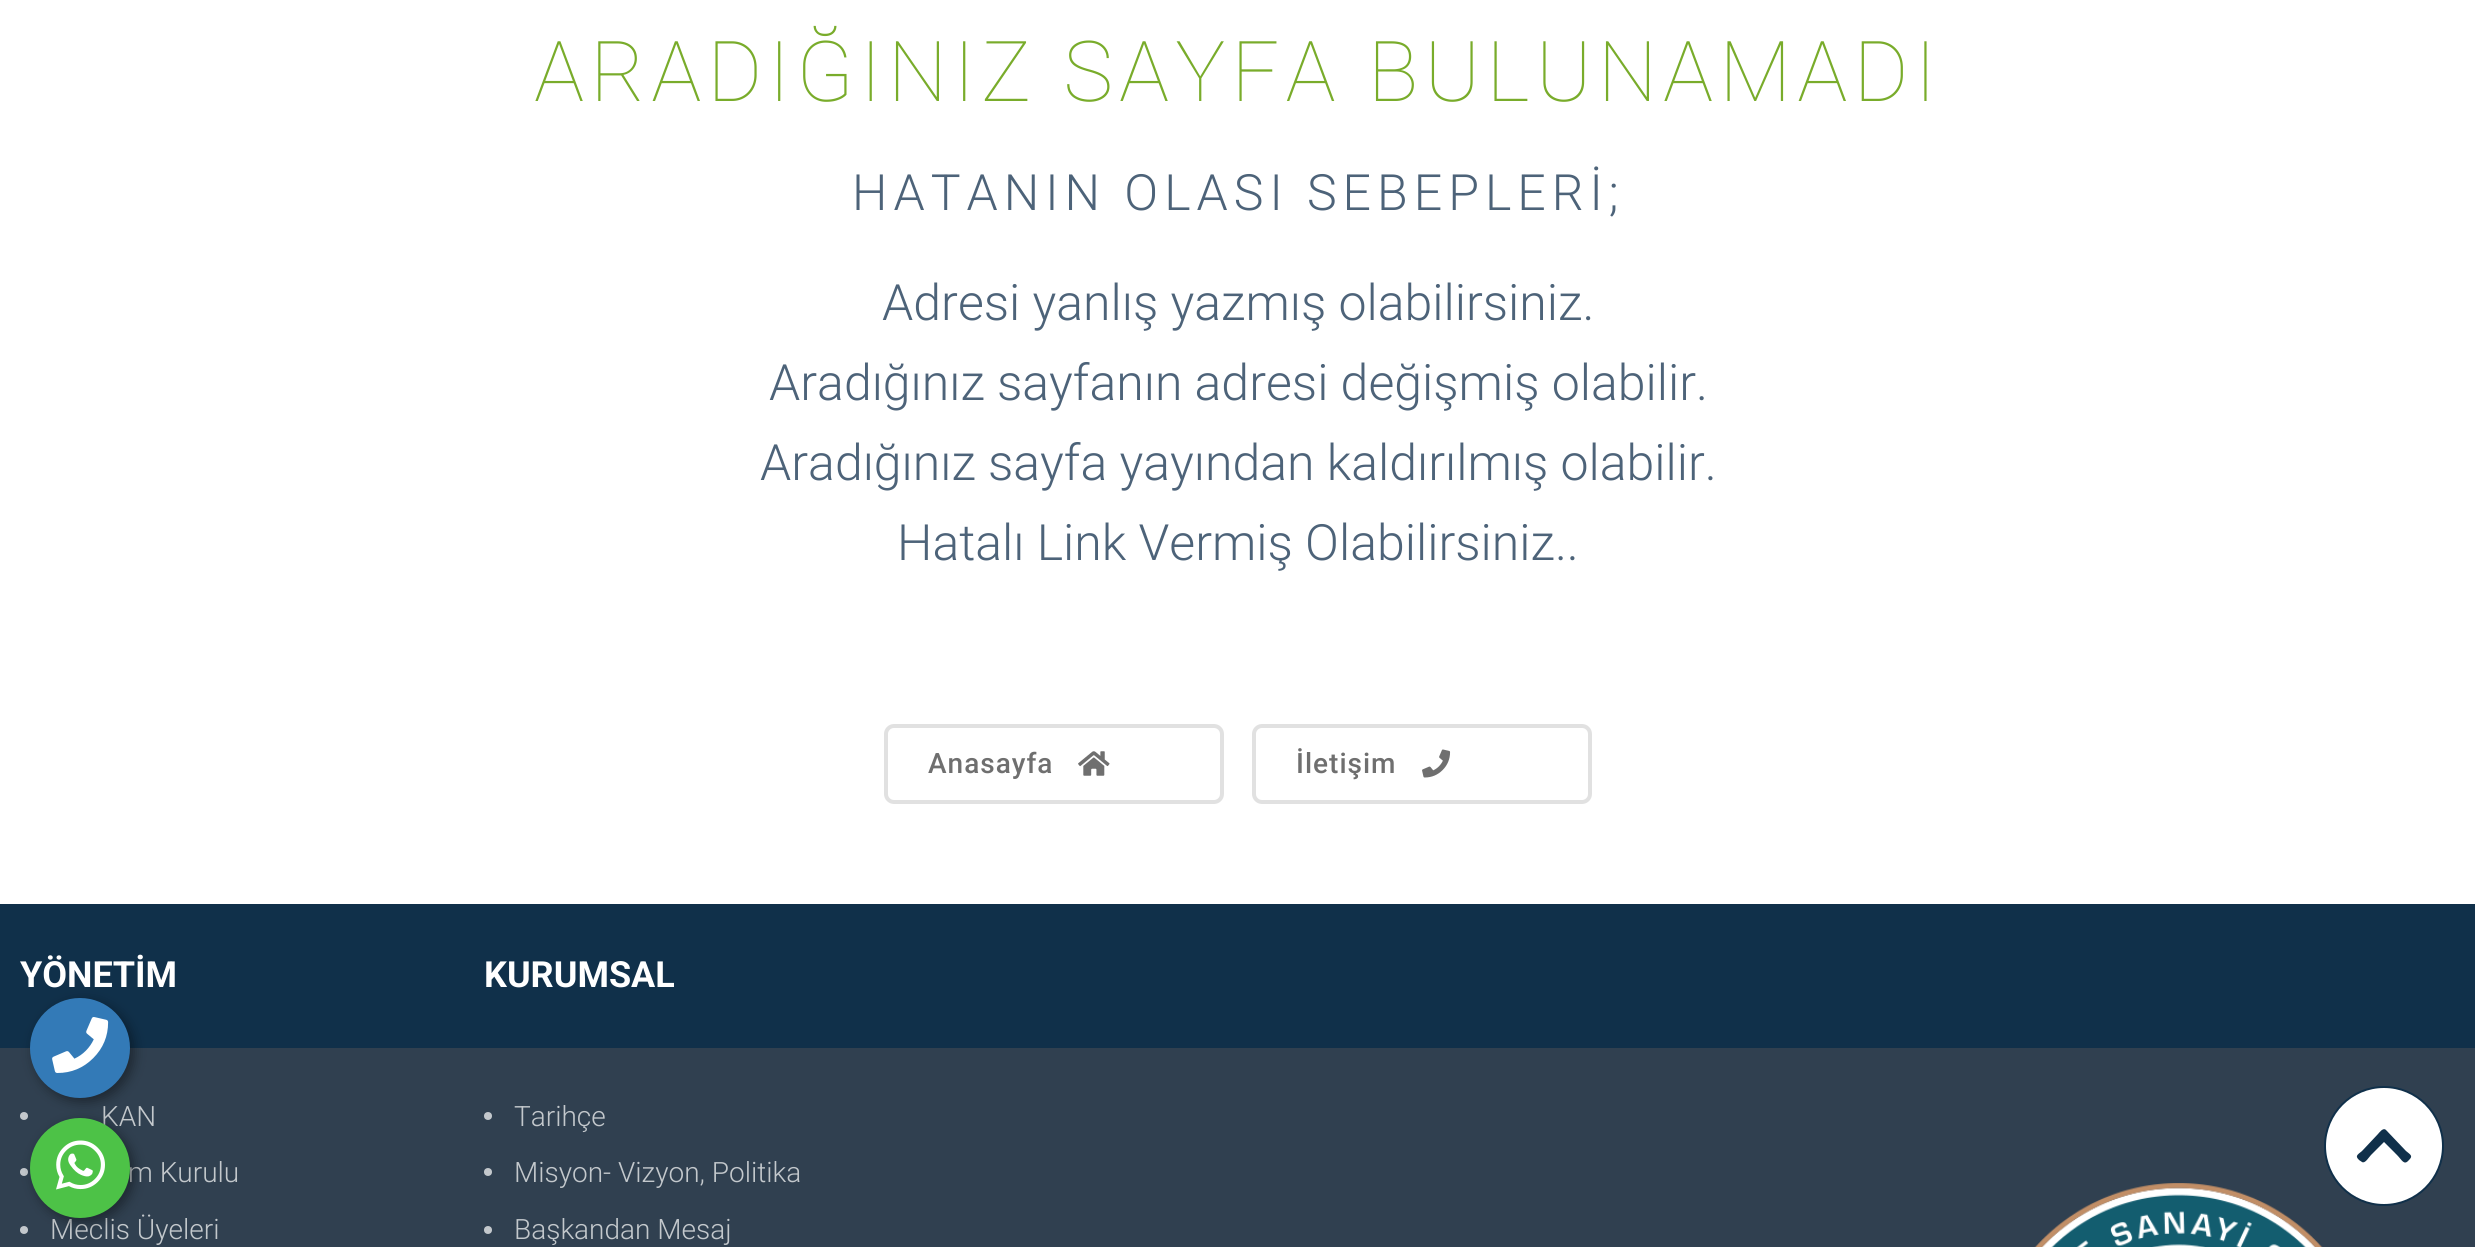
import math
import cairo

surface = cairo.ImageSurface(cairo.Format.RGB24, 2475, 1247)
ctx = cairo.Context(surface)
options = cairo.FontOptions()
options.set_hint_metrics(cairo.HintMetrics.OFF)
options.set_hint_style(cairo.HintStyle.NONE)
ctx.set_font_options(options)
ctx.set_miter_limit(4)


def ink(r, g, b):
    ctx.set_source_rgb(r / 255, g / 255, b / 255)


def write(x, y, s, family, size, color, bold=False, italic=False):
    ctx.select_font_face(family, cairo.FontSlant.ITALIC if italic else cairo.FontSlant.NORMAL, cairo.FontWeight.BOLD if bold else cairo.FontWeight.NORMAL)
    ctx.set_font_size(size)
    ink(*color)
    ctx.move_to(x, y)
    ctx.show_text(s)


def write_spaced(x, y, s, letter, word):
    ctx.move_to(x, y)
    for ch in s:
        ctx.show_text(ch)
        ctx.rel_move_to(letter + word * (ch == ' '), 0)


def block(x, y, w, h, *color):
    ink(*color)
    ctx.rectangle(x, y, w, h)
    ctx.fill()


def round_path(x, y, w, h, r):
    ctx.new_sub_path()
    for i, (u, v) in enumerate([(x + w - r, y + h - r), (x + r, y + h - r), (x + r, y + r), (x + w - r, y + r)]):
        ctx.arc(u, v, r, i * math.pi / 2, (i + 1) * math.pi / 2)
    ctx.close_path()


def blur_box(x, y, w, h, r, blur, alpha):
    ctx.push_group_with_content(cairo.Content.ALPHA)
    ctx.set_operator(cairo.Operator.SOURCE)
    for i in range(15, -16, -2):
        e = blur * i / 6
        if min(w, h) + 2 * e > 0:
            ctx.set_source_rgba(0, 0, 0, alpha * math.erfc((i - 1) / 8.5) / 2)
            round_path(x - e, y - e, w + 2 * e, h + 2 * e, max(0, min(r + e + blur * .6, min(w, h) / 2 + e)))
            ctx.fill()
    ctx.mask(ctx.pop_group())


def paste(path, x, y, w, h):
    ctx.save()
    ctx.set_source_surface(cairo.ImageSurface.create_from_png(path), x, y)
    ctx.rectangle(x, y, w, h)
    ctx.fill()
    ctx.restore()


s1 = dict(family="Roboto Light", size=50, color=(77, 99, 121))
s2 = dict(family="Roboto", size=36, color=(255, 255, 255), bold=True)
s3 = dict(family="Roboto Light", size=28, color=(195, 200, 204))

ink(255, 255, 255)
ctx.paint()
ctx.select_font_face("Roboto Thin")
ctx.set_font_size(84)
ink(121, 172, 43)
write_spaced(534, 101, "ARADIĞINIZ SAYFA BULUNAMADI", 6, 0)
ctx.select_font_face("Roboto Light")
ctx.set_font_size(50)
ink(77, 99, 121)
write_spaced(852, 210, "HATANIN OLASI SEBEPLERİ;", 6, 0)
write(882, 320, "Adresi yanlış yazmış olabilirsiniz.", **s1)
write(769, 400, "Aradığınız sayfanın adresi değişmiş olabilir.", **s1)
write(760, 480, "Aradığınız sayfa yayından kaldırılmış olabilir.", **s1)
write(897, 560, "Hatalı Link Vermiş Olabilirsiniz..", **s1)
round_path(886, 726, 336, 76, 8)
ink(225, 225, 225)
ctx.set_line_width(4)
ctx.stroke()
ctx.select_font_face("Roboto Medium")
ctx.set_font_size(28)
ink(111, 111, 111)
write_spaced(928, 773, "Anasayfa", 1, 0)
paste("pic1.png", 1078, 751, 32, 25)
round_path(1254, 726, 336, 76, 8)
ink(225, 225, 225)
ctx.stroke()
ink(111, 111, 111)
write_spaced(1296, 773, "İletişim", 1, 0)
paste("pic2.png", 1422, 749, 29, 29)
block(0, 1048, 2475, 199, 48, 64, 80)
block(0, 904, 2475, 144, 16, 48, 74)
write(20, 987, "YÖNETİM", **s2)
ink(195, 200, 204)
ctx.new_path()
ctx.arc(24, 1116, 4, 0, 2 * math.pi)
ctx.fill()
write(101, 1126, "KAN", **s3)
ctx.new_path()
ctx.arc(24, 1172, 4, 0, 2 * math.pi)
ctx.fill()
write(128, 1182, "m Kurulu", **s3)
ctx.new_path()
ctx.arc(24, 1230, 4, 0, 2 * math.pi)
ctx.fill()
write(50, 1239, "Meclis Üyeleri", **s3)
write(484, 987, "KURUMSAL", **s2)
ink(195, 200, 204)
ctx.new_path()
ctx.arc(488, 1116, 4, 0, 2 * math.pi)
ctx.fill()
write(514, 1126, "Tarihçe", **s3)
ctx.new_path()
ctx.arc(488, 1172, 4, 0, 2 * math.pi)
ctx.fill()
write(514, 1182, "Misyon- Vizyon, Politika", **s3)
ctx.new_path()
ctx.arc(488, 1230, 4, 0, 2 * math.pi)
ctx.fill()
write(514, 1239, "Başkandan Mesaj", **s3)
paste("pic3.png", 2034, 1183, 289, 64)
ink(0, 0, 0)
blur_box(34, 1002, 100, 100, 50, 6, 0.4)
ink(51, 122, 183)
ctx.arc(80, 1048, 50, 0, 2 * math.pi)
ctx.fill()
paste("pic4.png", 52, 1017, 57, 56)
ink(0, 0, 0)
blur_box(34, 1122, 100, 100, 50, 6, 0.4)
ink(77, 194, 71)
ctx.arc(80, 1168, 50, 0, 2 * math.pi)
ctx.fill()
paste("pic5.png", 56, 1140, 49, 50)
ink(255, 255, 255)
ctx.arc(2384, 1146, 59, 0, 2 * math.pi)
ctx.fill_preserve()
ink(16, 48, 74)
ctx.set_line_width(2)
ctx.stroke()
ctx.new_path()
ctx.move_to(2386, 1130)
ctx.line_to(2406, 1151)
ctx.curve_to(2411, 1155, 2413, 1156, 2409, 1160)
ctx.curve_to(2404, 1166, 2402, 1160, 2397, 1155)
ctx.line_to(2384, 1142)
ctx.line_to(2371, 1155)
ctx.curve_to(2369, 1157, 2365, 1164, 2362, 1162)
ctx.line_to(2359, 1160)
ctx.curve_to(2355, 1156, 2357, 1155, 2362, 1151)
ctx.line_to(2378, 1134)
ctx.curve_to(2379, 1133, 2383, 1127, 2386, 1130)
ctx.close_path()
ctx.fill()
surface.write_to_png("screenshot.png")
